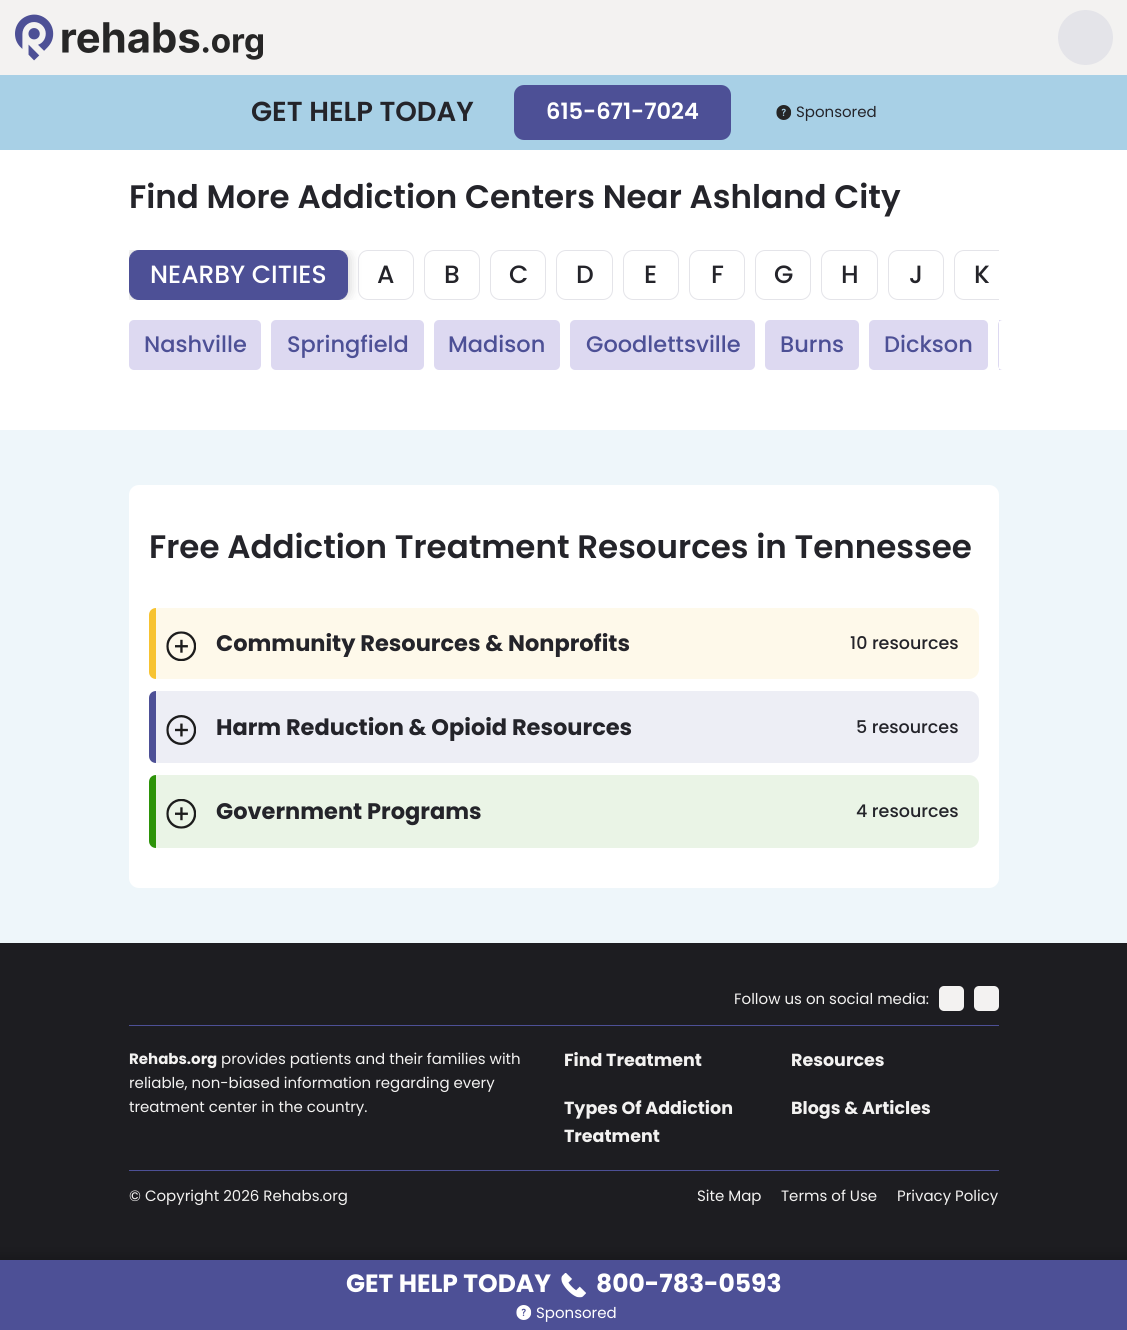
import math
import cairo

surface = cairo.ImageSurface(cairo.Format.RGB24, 1127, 1330)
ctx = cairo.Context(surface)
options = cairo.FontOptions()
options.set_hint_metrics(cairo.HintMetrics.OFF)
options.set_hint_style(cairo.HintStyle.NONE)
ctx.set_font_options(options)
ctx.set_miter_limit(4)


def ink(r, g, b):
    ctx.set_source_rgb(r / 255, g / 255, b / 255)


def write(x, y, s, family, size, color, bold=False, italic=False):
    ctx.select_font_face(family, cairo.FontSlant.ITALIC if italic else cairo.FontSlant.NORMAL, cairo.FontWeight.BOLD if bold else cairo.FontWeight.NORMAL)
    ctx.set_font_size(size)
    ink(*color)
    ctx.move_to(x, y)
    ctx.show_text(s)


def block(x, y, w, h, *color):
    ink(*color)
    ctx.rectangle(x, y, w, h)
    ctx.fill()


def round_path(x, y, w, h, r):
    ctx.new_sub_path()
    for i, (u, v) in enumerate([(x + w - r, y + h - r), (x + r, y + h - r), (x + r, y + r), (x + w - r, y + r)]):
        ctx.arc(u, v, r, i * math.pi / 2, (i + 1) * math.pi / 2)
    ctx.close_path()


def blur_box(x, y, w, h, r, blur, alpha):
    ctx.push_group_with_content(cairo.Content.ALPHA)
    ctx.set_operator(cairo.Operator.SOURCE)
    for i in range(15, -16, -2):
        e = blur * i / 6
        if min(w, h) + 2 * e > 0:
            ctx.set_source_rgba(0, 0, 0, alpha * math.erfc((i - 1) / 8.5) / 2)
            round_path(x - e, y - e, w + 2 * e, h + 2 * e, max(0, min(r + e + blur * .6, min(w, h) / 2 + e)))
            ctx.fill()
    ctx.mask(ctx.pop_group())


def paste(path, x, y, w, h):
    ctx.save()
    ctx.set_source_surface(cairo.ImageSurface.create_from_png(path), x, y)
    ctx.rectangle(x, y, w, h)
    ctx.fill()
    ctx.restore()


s1 = dict(family="Poppins SemiBold", size=27.5, color=(36, 36, 42))
s2 = dict(family="Poppins SemiBold", size=22.5, color=(255, 255, 255))
s3 = dict(family="Poppins", size=15, color=(36, 36, 42))
s4 = dict(family="Poppins SemiBold", size=32.5, color=(36, 36, 42))
s5 = dict(family="Poppins Medium", size=25, color=(255, 255, 255))
s6 = dict(family="Poppins Medium", size=25, color=(36, 36, 42))
s7 = dict(family="Poppins Medium", size=22.5, color=(77, 80, 150))
s8 = dict(family="Poppins", size=22.5, color=(36, 36, 42), bold=True)
s9 = dict(family="Poppins Medium", size=17.5, color=(36, 36, 42))
s10 = dict(family="Poppins", size=15, color=(243, 242, 241))
s11 = dict(family="Poppins", size=15, color=(243, 242, 241), bold=True)
s12 = dict(family="Poppins", size=17.5, color=(243, 242, 241), bold=True)
s13 = dict(family="Poppins", size=25, color=(255, 255, 255), bold=True)
s14 = dict(family="Poppins", size=15, color=(255, 255, 255))

ink(255, 255, 255)
ctx.paint()
block(0, 0, 1127, 75, 243, 242, 241)
paste("pic1.png", 15, 14, 248, 47)
ink(228, 228, 233)
ctx.arc(1085.5, 37.5, 27.5, 0, 2 * math.pi)
ctx.fill()
block(0, 75, 1127, 75, 168, 208, 230)
write(251, 121, "GET HELP TODAY", **s1)
ink(77, 80, 150)
round_path(514, 85, 217, 55, 10)
ctx.fill()
write(546, 119, "615-671-7024", **s2)
paste("pic2.png", 776, 105, 16, 15)
write(796, 117, "Sponsored", **s3)
write(129, 208, "Find More Addiction Centers Near Ashland City", **s4)
ctx.save()
ctx.rectangle(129, 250, 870, 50)
ctx.clip()
ink(0, 0, 0)
blur_box(128, 249, 221, 52, 11, 6, 0.2)
ctx.restore()
ink(77, 80, 150)
round_path(129.5, 250.5, 218, 49, 9.5)
ctx.fill_preserve()
ctx.set_line_width(1)
ctx.stroke()
write(150, 283, "NEARBY CITIES", **s5)
round_path(358.5, 250.5, 55, 49, 9.5)
ink(228, 228, 233)
ctx.stroke()
write(377, 283, "A", **s6)
round_path(424.5, 250.5, 55, 49, 9.5)
ink(228, 228, 233)
ctx.stroke()
write(444, 283, "B", **s6)
round_path(490.5, 250.5, 55, 49, 9.5)
ink(228, 228, 233)
ctx.stroke()
write(509, 283, "C", **s6)
round_path(556.5, 250.5, 56, 49, 9.5)
ink(228, 228, 233)
ctx.stroke()
write(576, 283, "D", **s6)
round_path(623.5, 250.5, 55, 49, 9.5)
ink(228, 228, 233)
ctx.stroke()
write(644, 283, "E", **s6)
round_path(689.5, 250.5, 55, 49, 9.5)
ink(228, 228, 233)
ctx.stroke()
write(711, 283, "F", **s6)
round_path(755.5, 250.5, 55, 49, 9.5)
ink(228, 228, 233)
ctx.stroke()
write(774, 283, "G", **s6)
round_path(821.5, 250.5, 56, 49, 9.5)
ink(228, 228, 233)
ctx.stroke()
write(841, 283, "H", **s6)
round_path(888.5, 250.5, 55, 49, 9.5)
ink(228, 228, 233)
ctx.stroke()
write(909, 283, "J", **s6)
ctx.save()
ctx.rectangle(129, 250, 870, 50)
ctx.clip()
round_path(954.5, 250.5, 55, 49, 9.5)
ink(228, 228, 233)
ctx.stroke()
ctx.restore()
write(974, 283, "K", **s6)
ink(221, 217, 241)
round_path(129, 320, 132, 50, 5)
ctx.fill()
write(144, 352, "Nashville", **s7)
ink(221, 217, 241)
round_path(271, 320, 153, 50, 5)
ctx.fill()
write(287, 352, "Springfield", **s7)
ink(221, 217, 241)
round_path(434, 320, 126, 50, 5)
ctx.fill()
write(448, 352, "Madison", **s7)
ink(221, 217, 241)
round_path(570, 320, 185, 50, 5)
ctx.fill()
write(586, 352, "Goodlettsville", **s7)
ink(221, 217, 241)
round_path(765, 320, 94, 50, 5)
ctx.fill()
write(780, 352, "Burns", **s7)
ink(221, 217, 241)
round_path(869, 320, 119, 50, 5)
ctx.fill()
write(884, 352, "Dickson", **s7)
ink(221, 217, 241)
ctx.new_path()
ctx.move_to(1003, 320)
ctx.line_to(999, 320)
ctx.line_to(999, 370)
ctx.line_to(1003, 370)
ctx.curve_to(1000, 370, 998, 368, 998, 365)
ctx.line_to(998, 325)
ctx.curve_to(998, 322, 1000, 320, 1003, 320)
ctx.close_path()
ctx.fill()
block(0, 430, 1127, 513, 238, 246, 250)
ink(255, 255, 255)
round_path(129, 485, 870, 403, 10)
ctx.fill()
write(149, 558, "Free Addiction Treatment Resources in Tennessee", **s4)
ink(254, 249, 234)
round_path(149, 608, 830, 71, 10)
ctx.fill()
ink(247, 195, 49)
ctx.new_path()
ctx.move_to(156, 608)
ctx.line_to(156, 679)
ctx.curve_to(152, 679, 149, 676, 149, 672)
ctx.line_to(149, 615)
ctx.curve_to(149, 611, 152, 608, 156, 608)
ctx.close_path()
ctx.fill()
paste("pic3.png", 166, 631, 30, 30)
write(216, 651, "Community Resources & Nonprofits", **s8)
write(850, 649, "10 resources", **s9)
ink(237, 238, 245)
round_path(149, 691, 830, 72, 10)
ctx.fill()
ink(77, 80, 150)
ctx.new_path()
ctx.move_to(156, 691)
ctx.line_to(156, 763)
ctx.curve_to(152, 763, 149, 760, 149, 756)
ctx.line_to(149, 698)
ctx.curve_to(149, 694, 152, 691, 156, 691)
ctx.close_path()
ctx.fill()
paste("pic4.png", 166, 715, 30, 30)
write(216, 735, "Harm Reduction & Opioid Resources", **s8)
write(856, 733, "5 resources", **s9)
ink(234, 244, 230)
round_path(149, 775, 830, 73, 10)
ctx.fill()
ink(45, 147, 9)
ctx.new_path()
ctx.move_to(156, 775)
ctx.line_to(156, 848)
ctx.curve_to(152, 848, 149, 845, 149, 841)
ctx.line_to(149, 782)
ctx.curve_to(149, 778, 152, 775, 156, 775)
ctx.close_path()
ctx.fill()
paste("pic5.png", 166, 799, 30, 30)
write(216, 819, "Government Programs", **s8)
write(856, 817, "4 resources", **s9)
block(0, 943, 1127, 317, 29, 29, 33)
write(734, 1004, "Follow us on social media:", **s10)
round_path(939, 986, 25, 25, 5)
ctx.fill()
round_path(974, 986, 25, 25, 5)
ctx.fill()
block(129, 1025, 870, 1, 77, 80, 150)
write(129, 1064, "Rehabs.org", **s11)
write(221, 1064, "provides patients and their families with", **s10)
write(129, 1088, "reliable, non-biased information regarding every", **s10)
write(129, 1112, "treatment center in the country.", **s10)
write(564, 1066, "Find Treatment", **s12)
write(791, 1066, "Resources", **s12)
write(564, 1114, "Types Of Addiction", **s12)
write(564, 1142, "Treatment", **s12)
write(791, 1114, "Blogs & Articles", **s12)
block(129, 1170, 870, 1, 77, 80, 150)
write(129, 1201, "© Copyright 2026 Rehabs.org", **s10)
write(697, 1201, "Site Map", **s10)
write(781, 1201, "Terms of Use", **s10)
write(897, 1201, "Privacy Policy", **s10)
ink(0, 0, 0)
blur_box(-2, 1258, 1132, 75, 0, 7.5, 0.25)
block(0, 1260, 1127, 70, 77, 80, 150)
write(346, 1292, "GET HELP TODAY", **s13)
paste("pic6.png", 561, 1273, 25, 25)
write(596, 1292, "800-783-0593", **s13)
paste("pic7.png", 516, 1305, 16, 15)
write(536, 1318, "Sponsored", **s14)
surface.write_to_png("screenshot.png")
